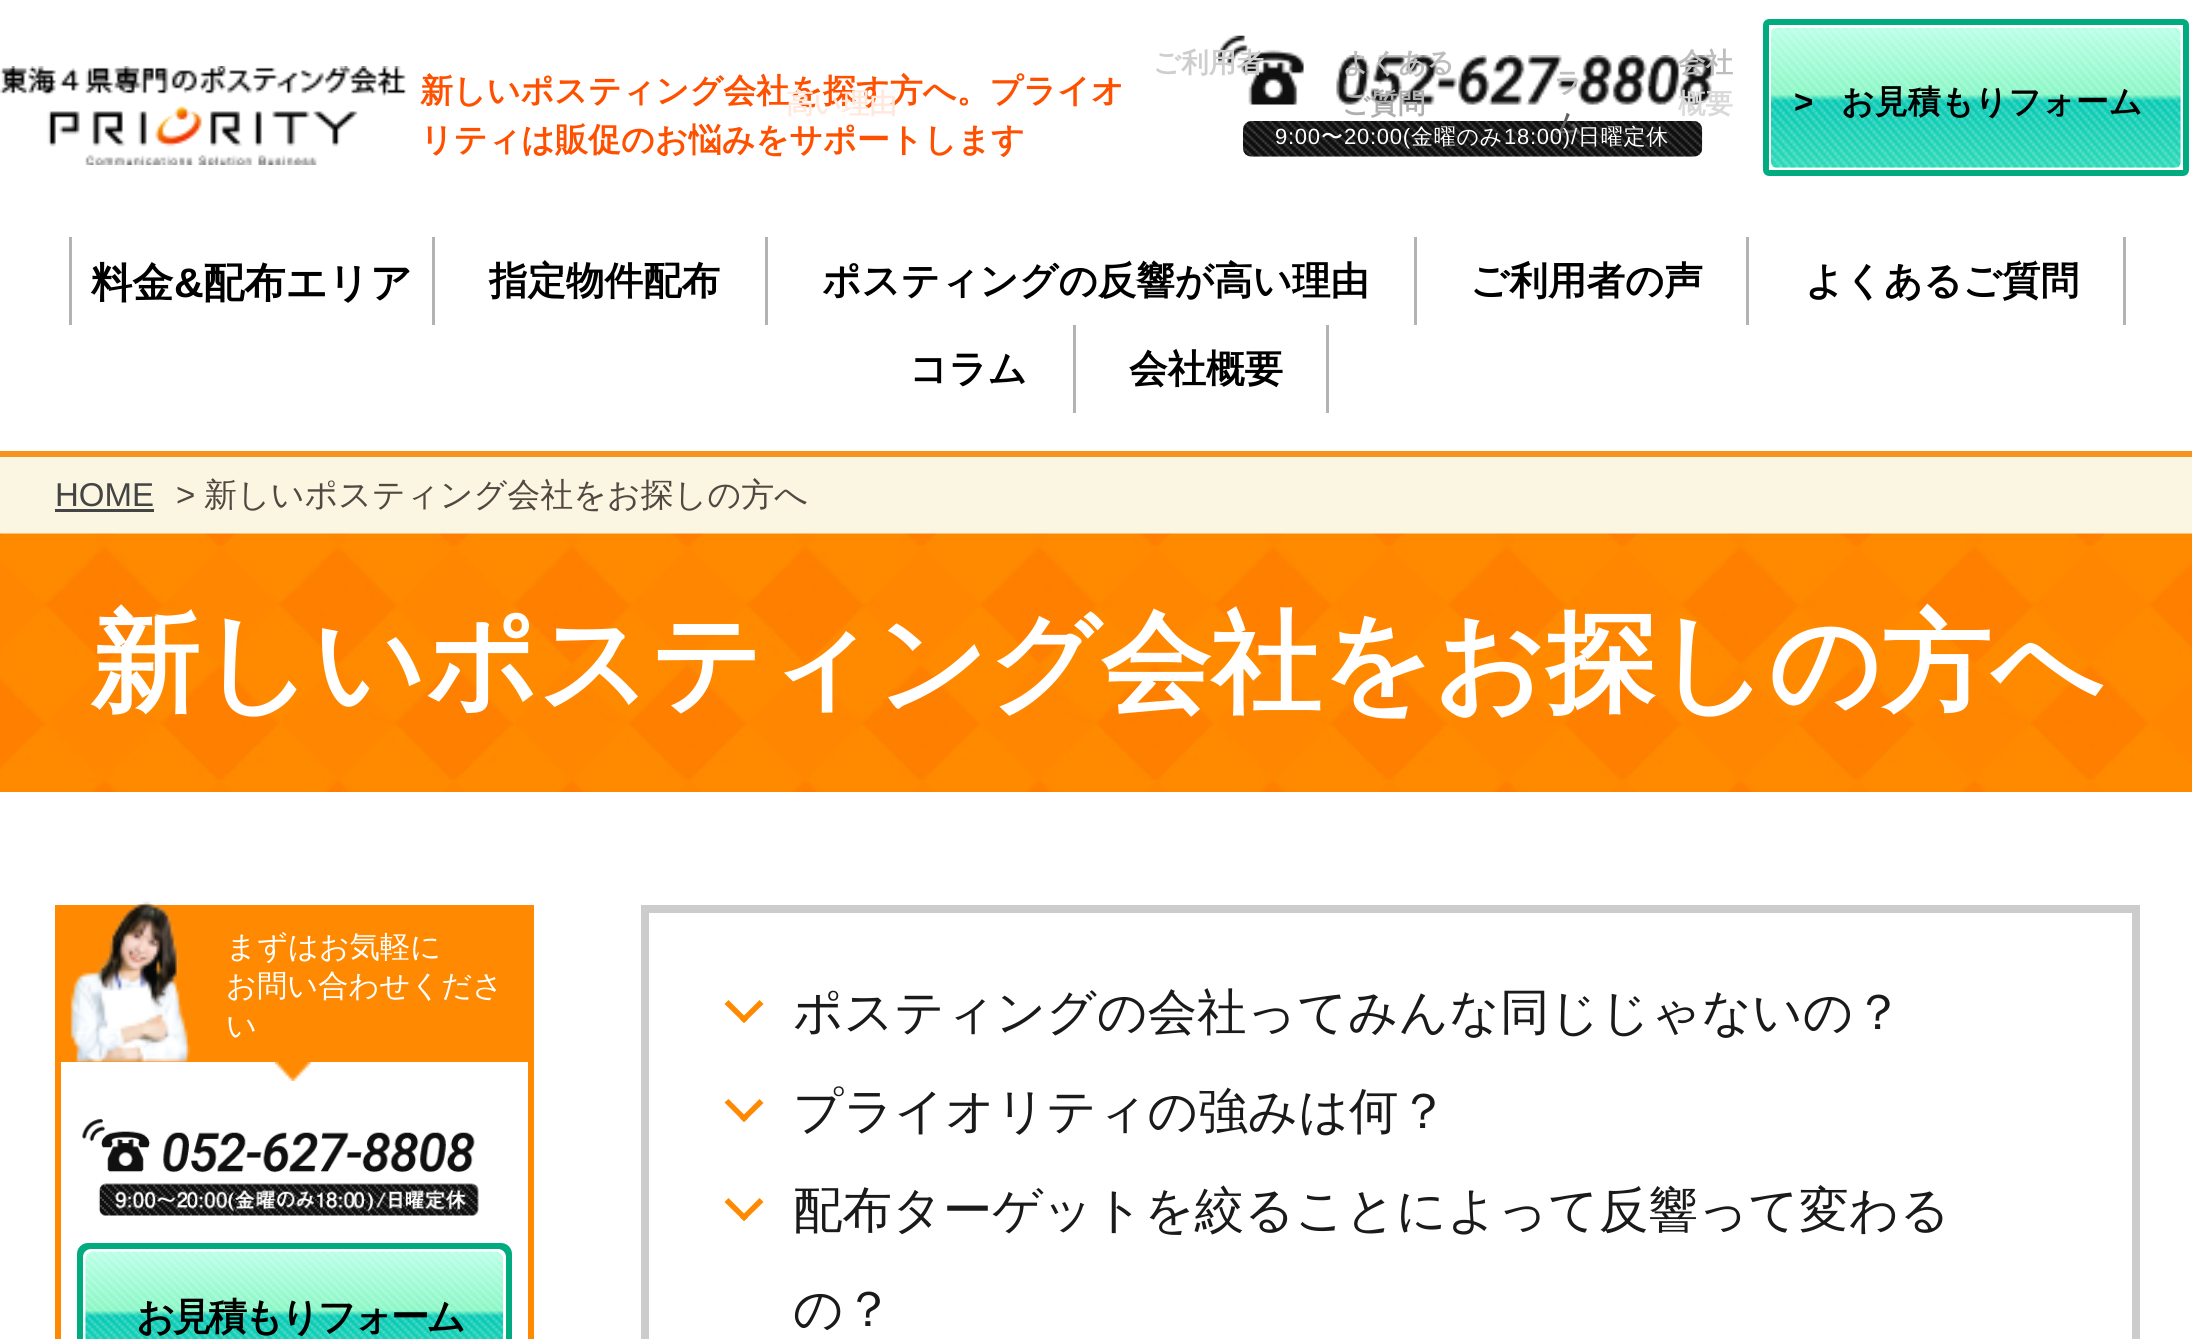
import math
import cairo

surface = cairo.ImageSurface(cairo.Format.RGB24, 2192, 1339)
ctx = cairo.Context(surface)
options = cairo.FontOptions()
options.set_hint_metrics(cairo.HintMetrics.OFF)
options.set_hint_style(cairo.HintStyle.NONE)
ctx.set_font_options(options)
ctx.set_miter_limit(4)


def ink(r, g, b):
    ctx.set_source_rgb(r / 255, g / 255, b / 255)


def write(x, y, s, family, size, color, bold=False, italic=False):
    ctx.select_font_face(family, cairo.FontSlant.ITALIC if italic else cairo.FontSlant.NORMAL, cairo.FontWeight.BOLD if bold else cairo.FontWeight.NORMAL)
    ctx.set_font_size(size)
    ink(*color)
    ctx.move_to(x, y)
    ctx.show_text(s)


def write_spaced(x, y, s, letter, word):
    ctx.move_to(x, y)
    for ch in s:
        ctx.show_text(ch)
        ctx.rel_move_to(letter + word * (ch == ' '), 0)


def block(x, y, w, h, *color):
    ink(*color)
    ctx.rectangle(x, y, w, h)
    ctx.fill()


def round_path(x, y, w, h, r):
    ctx.new_sub_path()
    for i, (u, v) in enumerate([(x + w - r, y + h - r), (x + r, y + h - r), (x + r, y + r), (x + w - r, y + r)]):
        ctx.arc(u, v, r, i * math.pi / 2, (i + 1) * math.pi / 2)
    ctx.close_path()


def paste(path, x, y, w, h):
    ctx.save()
    ctx.set_source_surface(cairo.ImageSurface.create_from_png(path), x, y)
    ctx.rectangle(x, y, w, h)
    ctx.fill()
    ctx.restore()


s1 = dict(family="WenQuanYi Zen Hei", size=33, color=(255, 80, 0), bold=True)
s2 = dict(family="WenQuanYi Zen Hei", size=27.5, color=(255, 232, 222), bold=True)
s3 = dict(family="WenQuanYi Zen Hei", size=27.5, color=(206, 206, 206), bold=True)
s4 = dict(family="WenQuanYi Zen Hei", size=27.5, color=(189, 189, 189), bold=True)
s5 = dict(family="WenQuanYi Zen Hei", size=27.5, color=(175, 175, 176), bold=True)
s6 = dict(family="WenQuanYi Zen Hei", size=27.5, color=(95, 95, 95), bold=True)
s7 = dict(family="WenQuanYi Zen Hei", size=27.5, color=(217, 217, 217), bold=True)
s8 = dict(family="Liberation Sans", size=33, color=(0, 0, 0), bold=True)
s9 = dict(family="WenQuanYi Zen Hei", size=33, color=(0, 0, 0), bold=True)
s10 = dict(family="WenQuanYi Zen Hei", size=41.25, color=(0, 0, 0), bold=True)
s11 = dict(family="Liberation Sans", size=41.25, color=(0, 0, 0), bold=True)
s12 = dict(family="WenQuanYi Zen Hei", size=38.5, color=(0, 0, 0), bold=True)
s13 = dict(family="Liberation Sans", size=33, color=(68, 68, 68))
s14 = dict(family="Liberation Sans", size=33, color=(83, 71, 65))
s15 = dict(family="WenQuanYi Zen Hei Medium", size=33, color=(83, 71, 65))
s16 = dict(family="WenQuanYi Zen Hei", size=110, color=(255, 255, 255), bold=True)
s17 = dict(family="WenQuanYi Zen Hei Medium", size=30.25, color=(255, 255, 255))
s18 = dict(family="WenQuanYi Zen Hei Medium", size=49.5, color=(26, 26, 26))

ink(255, 255, 255)
ctx.paint()
write(420, 102, "新しいポスティング会社を探す方へ。プライオ", **s1)
write(786, 113, "高い理由", **s2)
paste("pic3.png", 1218, 35, 86, 70)
write(1153, 72, "ご利用者", **s3)
paste("pic4.png", 1336, 55, 378, 50)
write(1342, 72, "よくある", **s4)
write(1342, 113, "ご質問", **s5)
write(1554, 92, "ラ", **s4)
paste("pic5.png", 1243, 121, 460, 36)
write(1554, 133, "ム", **s6)
write(1678, 72, "会社", **s4)
write(1678, 113, "概要", **s7)
paste("pic1.png", 0, 66, 406, 99)
write(420, 151, "リティは販促のお悩みをサポートします", **s1)
round_path(1766, 22, 420, 151, 3)
ink(0, 171, 128)
ctx.set_line_width(6)
ctx.stroke()
paste("pic2.png", 1771, 27, 410, 141)
write(1794, 113, ">", **s8)
write(1841, 113, "お見積もりフォーム", **s9)
ctx.select_font_face("Liberation Sans")
ctx.set_font_size(22)
ink(255, 255, 255)
write_spaced(1275, 144, "9:00", 0.75, 0)
ctx.select_font_face("WenQuanYi Zen Hei Medium")
write_spaced(1321, 144, "〜", 0.75, 0)
ctx.select_font_face("Liberation Sans")
write_spaced(1344, 144, "20:00(", 0.75, 0)
ctx.select_font_face("WenQuanYi Zen Hei Medium")
write_spaced(1411, 144, "金曜のみ", 0.75, 0)
ctx.select_font_face("Liberation Sans")
write_spaced(1504, 144, "18:00)/", 0.75, 0)
ctx.select_font_face("WenQuanYi Zen Hei Medium")
write_spaced(1578, 144, "日曜定休", 0.75, 0)
block(432, 237, 3, 88, 179, 179, 179)
block(69, 237, 3, 88, 179, 179, 179)
write(91, 297, "料金", **s10)
write(174, 297, "&", **s11)
write(203, 297, "配布エリア", **s10)
block(765, 237, 3, 88, 179, 179, 179)
write(489, 294, "指定物件配布", **s12)
block(1414, 237, 3, 88, 179, 179, 179)
write(822, 294, "ポスティングの反響が高い理由", **s12)
block(1746, 237, 3, 88, 179, 179, 179)
write(1470, 294, "ご利用者の声", **s12)
block(2123, 237, 3, 88, 179, 179, 179)
write(1805, 294, "よくあるご質問", **s12)
block(1073, 325, 3, 88, 179, 179, 179)
write(909, 382, "コラム", **s12)
block(1326, 325, 3, 88, 179, 179, 179)
write(1129, 382, "会社概要", **s12)
block(0, 457, 2192, 77, 250, 246, 225)
block(0, 451, 2192, 6, 247, 147, 30)
write(55, 506, "HOME", **s13)
block(55, 509, 99, 3, 68, 68, 68)
write(176, 506, ">", **s14)
write(204, 506, "新しいポスティング会社をお探しの方へ", **s15)
paste("pic6.png", 0, 533, 2192, 259)
write(90, 701, "新しいポスティング会社をお探しの方へ", **s16)
ctx.rectangle(58, 908, 473, 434)
ink(255, 137, 0)
ctx.stroke()
block(61, 911, 467, 151, 255, 137, 0)
paste("pic7.png", 70, 901, 121, 161)
write(226, 957, "まずはお気軽に", **s17)
write(226, 996, "お問い合わせくださ", **s17)
write(226, 1036, "い", **s17)
paste("pic8.png", 275, 1062, 36, 19)
paste("pic9.png", 82, 1119, 397, 97)
ink(0, 171, 128)
round_path(77, 1243, 435, 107, 11)
ctx.fill()
ink(255, 255, 255)
round_path(83, 1249, 423, 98, 8)
ctx.fill()
paste("pic10.png", 85, 1251, 419, 88)
ctx.select_font_face("WenQuanYi Zen Hei", cairo.FontSlant.NORMAL, cairo.FontWeight.BOLD)
ctx.set_font_size(38.5)
ink(0, 0, 0)
write_spaced(136, 1330, "お見積もりフォーム", -2.75, 0)
ctx.rectangle(645, 909, 1491, 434)
ink(204, 204, 204)
ctx.set_line_width(8)
ctx.stroke()
ink(255, 137, 0)
ctx.new_path()
ctx.move_to(759.5, 1000)
ctx.line_to(763.5, 1004)
ctx.line_to(744, 1023)
ctx.line_to(740, 1019.5)
ctx.close_path()
ctx.fill()
ctx.new_path()
ctx.move_to(728.5, 1000)
ctx.line_to(748, 1019.5)
ctx.line_to(744, 1023)
ctx.line_to(724.5, 1004)
ctx.close_path()
ctx.fill()
write(793, 1029, "ポスティングの会社ってみんな同じじゃないの？", **s18)
ink(255, 137, 0)
ctx.new_path()
ctx.move_to(759.5, 1099)
ctx.line_to(763.5, 1103)
ctx.line_to(744, 1122)
ctx.line_to(740, 1118.5)
ctx.close_path()
ctx.fill()
ctx.new_path()
ctx.move_to(728.5, 1099)
ctx.line_to(748, 1118.5)
ctx.line_to(744, 1122)
ctx.line_to(724.5, 1102.5)
ctx.close_path()
ctx.fill()
write(793, 1128, "プライオリティの強みは何？", **s18)
ink(255, 137, 0)
ctx.new_path()
ctx.move_to(759.5, 1198)
ctx.line_to(763.5, 1202)
ctx.line_to(744, 1221)
ctx.line_to(740, 1217.5)
ctx.close_path()
ctx.fill()
ctx.new_path()
ctx.move_to(728.5, 1198)
ctx.line_to(748, 1217.5)
ctx.line_to(744, 1221)
ctx.line_to(724.5, 1202)
ctx.close_path()
ctx.fill()
write(793, 1227, "配布ターゲットを絞ることによって反響って変わる", **s18)
write(793, 1326, "の？", **s18)
surface.write_to_png("screenshot.png")
